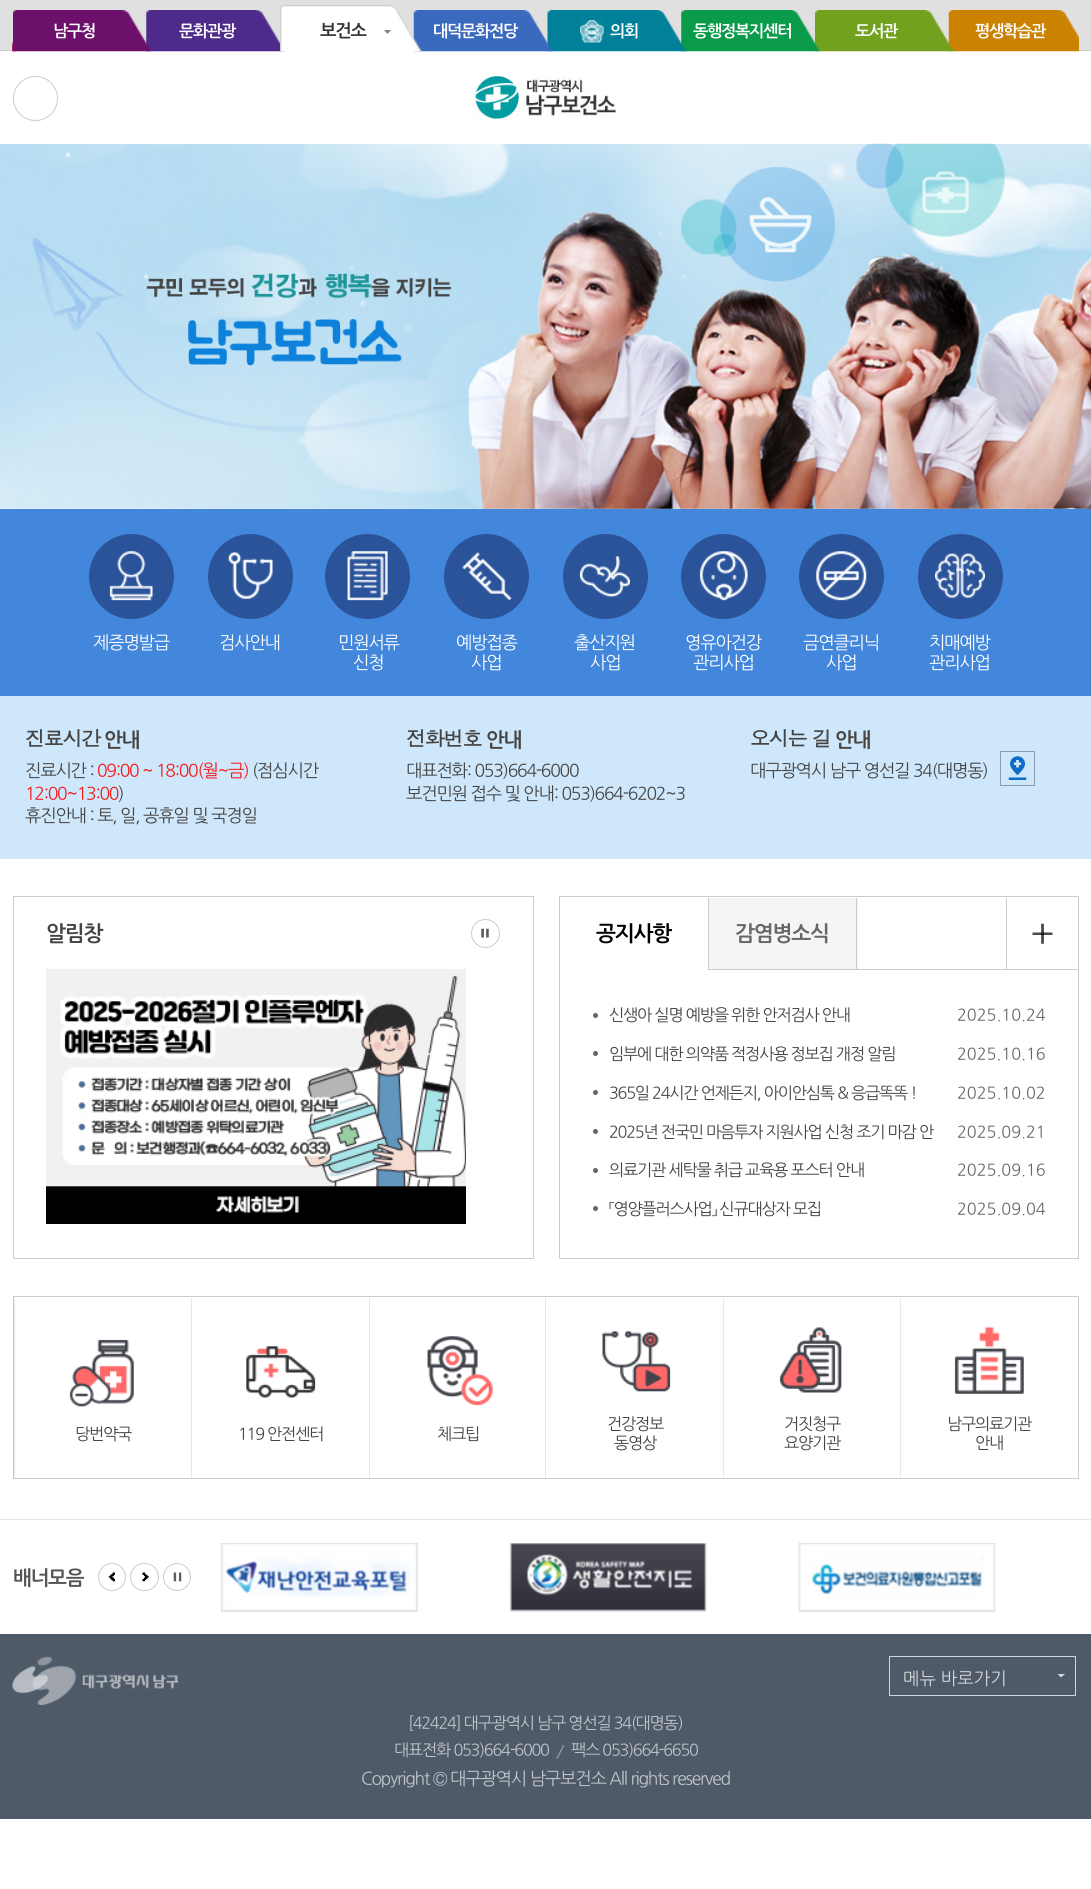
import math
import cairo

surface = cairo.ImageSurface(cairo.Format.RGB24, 1091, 1889)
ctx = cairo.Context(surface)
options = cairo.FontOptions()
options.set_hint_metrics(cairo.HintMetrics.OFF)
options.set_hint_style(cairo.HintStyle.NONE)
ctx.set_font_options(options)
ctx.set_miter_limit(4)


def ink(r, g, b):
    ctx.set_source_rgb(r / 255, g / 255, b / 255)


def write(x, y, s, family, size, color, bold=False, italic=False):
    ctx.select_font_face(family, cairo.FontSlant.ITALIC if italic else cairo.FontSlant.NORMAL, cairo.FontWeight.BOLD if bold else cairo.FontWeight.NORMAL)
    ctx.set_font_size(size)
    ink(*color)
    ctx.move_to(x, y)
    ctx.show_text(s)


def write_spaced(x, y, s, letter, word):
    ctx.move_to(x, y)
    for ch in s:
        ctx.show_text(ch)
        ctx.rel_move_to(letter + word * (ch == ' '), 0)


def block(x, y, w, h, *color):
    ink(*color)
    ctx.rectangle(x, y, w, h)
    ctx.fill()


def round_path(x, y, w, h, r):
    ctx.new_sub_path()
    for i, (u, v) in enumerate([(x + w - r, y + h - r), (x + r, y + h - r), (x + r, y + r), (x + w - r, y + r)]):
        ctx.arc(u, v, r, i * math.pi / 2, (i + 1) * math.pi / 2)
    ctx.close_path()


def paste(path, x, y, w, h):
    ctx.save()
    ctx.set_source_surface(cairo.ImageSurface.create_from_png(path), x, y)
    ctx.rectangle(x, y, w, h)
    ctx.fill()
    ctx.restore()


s1 = dict(family="NanumGothic", size=16.25, color=(102, 102, 102))
s2 = dict(family="NanumGothic", size=17.5, color=(211, 214, 218))

ink(255, 255, 255)
ctx.paint()
block(0, 0, 1091, 50, 224, 224, 224)
block(0, 50, 1091, 1, 206, 206, 206)
paste("pic2.png", 146, 10, 139, 42)
paste("pic10.png", 12, 41, 6, 11)
paste("pic1.png", 13, 10, 139, 42)
ctx.select_font_face("NanumGothic", cairo.FontSlant.NORMAL, cairo.FontWeight.BOLD)
ctx.set_font_size(16.25)
ink(255, 255, 255)
write_spaced(53, 36, "남구청", -1.25, 0)
write_spaced(179, 36, "문화관광", -1.25, 0)
paste("pic9.png", 948, 10, 131, 42)
paste("pic8.png", 815, 10, 139, 42)
paste("pic7.png", 681, 10, 140, 42)
paste("pic5.png", 547, 10, 140, 42)
paste("pic4.png", 413, 10, 140, 42)
paste("pic3.png", 280, 5, 142, 47)
ctx.set_font_size(17.5)
ink(51, 51, 51)
write_spaced(320, 36, "보건소", -1.25, 0)
ink(130, 130, 130)
ctx.new_path()
ctx.move_to(384, 30)
ctx.line_to(391, 30)
ctx.line_to(387.5, 34)
ctx.close_path()
ctx.fill()
ctx.set_font_size(16.25)
ink(255, 255, 255)
write_spaced(433, 36, "대덕문화전당", -1.25, 0)
paste("pic6.png", 580, 20, 24, 23)
write_spaced(610, 36, "의회", -1.25, 0)
write_spaced(693, 36, "동행정복지센터", -1.25, 0)
write_spaced(855, 36, "도서관", -1.25, 0)
write_spaced(975, 36, "평생학습관", -1.25, 0)
ctx.new_path()
ctx.arc(35.5, 98.5, 22, 0, 2 * math.pi)
ink(204, 204, 204)
ctx.set_line_width(1)
ctx.stroke()
paste("pic11.png", 474, 76, 142, 43)
paste("pic12.png", 0, 144, 1091, 365)
paste("pic14.png", 468, 143, 623, 366)
paste("pic13.png", 32, 237, 507, 195)
block(0, 509, 1091, 187, 66, 135, 219)
ink(42, 83, 153)
ctx.arc(131.5, 576.5, 42.5, 0, 2 * math.pi)
ctx.fill()
paste("pic15.png", 109, 551, 44, 50)
ctx.select_font_face("NanumGothic")
ctx.set_font_size(17.5)
ink(255, 255, 255)
write_spaced(93, 648, "제증명발급", -1.25, 0)
ink(42, 83, 153)
ctx.new_path()
ctx.arc(250.5, 576.5, 42.5, 0, 2 * math.pi)
ctx.fill()
paste("pic16.png", 228, 552, 45, 47)
ink(255, 255, 255)
write_spaced(219, 648, "검사안내", -1.25, 0)
ink(42, 83, 153)
ctx.new_path()
ctx.arc(367.5, 576.5, 42.5, 0, 2 * math.pi)
ctx.fill()
paste("pic17.png", 347, 551, 41, 50)
ink(255, 255, 255)
write_spaced(338, 648, "민원서류", -1.25, 0)
write_spaced(353, 668, "신청", -1.25, 0)
ink(42, 83, 153)
ctx.new_path()
ctx.arc(486.5, 576.5, 42.5, 0, 2 * math.pi)
ctx.fill()
paste("pic18.png", 462, 552, 50, 49)
ink(255, 255, 255)
write_spaced(456, 648, "예방접종", -1.25, 0)
write_spaced(471, 668, "사업", -1.25, 0)
ink(42, 83, 153)
ctx.new_path()
ctx.arc(605.5, 576.5, 42.5, 0, 2 * math.pi)
ctx.fill()
paste("pic19.png", 580, 556, 50, 41)
ink(255, 255, 255)
write_spaced(574, 648, "출산지원", -1.25, 0)
write_spaced(590, 668, "사업", -1.25, 0)
ink(42, 83, 153)
ctx.new_path()
ctx.arc(723.5, 576.5, 42.5, 0, 2 * math.pi)
ctx.fill()
paste("pic20.png", 699, 551, 49, 50)
ink(255, 255, 255)
write_spaced(685, 648, "영유아건강", -1.25, 0)
write_spaced(693, 668, "관리사업", -1.25, 0)
ink(42, 83, 153)
ctx.new_path()
ctx.arc(841.5, 576.5, 42.5, 0, 2 * math.pi)
ctx.fill()
paste("pic21.png", 816, 551, 51, 50)
ink(255, 255, 255)
write_spaced(803, 648, "금연클리닉", -1.25, 0)
write_spaced(826, 668, "사업", -1.25, 0)
ink(42, 83, 153)
ctx.new_path()
ctx.arc(960.5, 576.5, 42.5, 0, 2 * math.pi)
ctx.fill()
paste("pic22.png", 935, 553, 50, 45)
ink(255, 255, 255)
write_spaced(929, 648, "치매예방", -1.25, 0)
write_spaced(929, 668, "관리사업", -1.25, 0)
block(0, 696, 1091, 163, 207, 231, 250)
ctx.select_font_face("Dotum", cairo.FontSlant.NORMAL, cairo.FontWeight.BOLD)
ctx.set_font_size(20)
ink(68, 68, 68)
write_spaced(25, 746, "진료시간", -1.25, 0)
ctx.select_font_face("NanumGothic", cairo.FontSlant.NORMAL, cairo.FontWeight.BOLD)
write_spaced(104, 746, "안내", -1.25, 0)
ctx.select_font_face("NanumGothic")
ctx.set_font_size(17.5)
write_spaced(25, 776, "진료시간 :", -1.25, 0)
ink(247, 24, 24)
write_spaced(97, 776, "09:00 ~ 18:00(월~금)", -1.25, 0)
ink(68, 68, 68)
write_spaced(252, 776, "(점심시간", -1.25, 0)
ink(247, 24, 24)
write_spaced(25, 799, "12:00~13:00", -1.25, 0)
ink(68, 68, 68)
write_spaced(118, 799, ")", -1.25, 0)
write_spaced(25, 821, "휴진안내 : 토, 일, 공휴일 및 국경일", -1.25, 0)
ctx.select_font_face("Dotum", cairo.FontSlant.NORMAL, cairo.FontWeight.BOLD)
ctx.set_font_size(20)
write_spaced(406, 746, "전화번호", -1.25, 0)
ctx.select_font_face("NanumGothic", cairo.FontSlant.NORMAL, cairo.FontWeight.BOLD)
write_spaced(486, 746, "안내", -1.25, 0)
ctx.select_font_face("NanumGothic")
ctx.set_font_size(17.5)
write_spaced(406, 776, "대표전화: 053)664-6000", -1.25, 0)
write_spaced(406, 799, "보건민원 접수 및 안내: 053)664-6202~3", -1.25, 0)
ctx.select_font_face("Dotum", cairo.FontSlant.NORMAL, cairo.FontWeight.BOLD)
ctx.set_font_size(20)
write_spaced(750, 746, "오시는 길", -1.25, 0)
ctx.select_font_face("NanumGothic", cairo.FontSlant.NORMAL, cairo.FontWeight.BOLD)
write_spaced(835, 746, "안내", -1.25, 0)
ctx.select_font_face("NanumGothic")
ctx.set_font_size(17.5)
write_spaced(750, 776, "대구광역시 남구 영선길 34(대명동)", -1.25, 0)
paste("pic23.png", 1008, 756, 19, 24)
ctx.rectangle(1000.5, 751.5, 34, 34)
ink(140, 156, 169)
ctx.stroke()
ctx.rectangle(13.5, 896.5, 520, 362)
ink(204, 204, 204)
ctx.stroke()
ctx.select_font_face("NanumGothic", cairo.FontSlant.NORMAL, cairo.FontWeight.BOLD)
ctx.set_font_size(21.25)
ink(68, 68, 68)
write_spaced(46, 940, "알림창", -1.25, 0)
ctx.new_path()
ctx.arc(485.5, 933.5, 14, 0, 2 * math.pi)
ink(204, 204, 204)
ctx.stroke()
paste("pic24.png", 481, 928, 8, 10)
paste("pic25.png", 46, 969, 420, 255)
ctx.rectangle(559.5, 896.5, 519, 362)
ctx.stroke()
block(708, 969, 370, 1, 204, 204, 204)
block(708, 898, 1, 71, 204, 204, 204)
ink(0, 0, 0)
write_spaced(596, 940, "공지사항", -1.25, 0)
block(1006, 898, 1, 72, 204, 204, 204)
paste("pic26.png", 1032, 923, 21, 21)
ink(102, 102, 102)
ctx.arc(595.5, 1015.5, 2.5, 0, 2 * math.pi)
ctx.fill()
ctx.select_font_face("NanumGothic")
ctx.set_font_size(16.25)
ink(68, 68, 68)
write_spaced(609, 1020, "신생아 실명 예방을 위한 안저검사 안내", -1.25, 0)
write(957, 1020, "2025.10.24", **s1)
ctx.new_path()
ctx.arc(595.5, 1053.5, 2.5, 0, 2 * math.pi)
ctx.fill()
ink(68, 68, 68)
write_spaced(609, 1059, "임부에 대한 의약품 적정사용 정보집 개정 알림", -1.25, 0)
write(957, 1059, "2025.10.16", **s1)
ctx.new_path()
ctx.arc(595.5, 1092.5, 2.5, 0, 2 * math.pi)
ctx.fill()
ink(68, 68, 68)
write_spaced(609, 1098, "365일 24시간 언제든지, 아이안심톡 & 응급똑똑 !", -1.25, 0)
write(957, 1098, "2025.10.02", **s1)
ctx.new_path()
ctx.arc(595.5, 1131.5, 2.5, 0, 2 * math.pi)
ctx.fill()
ink(68, 68, 68)
write_spaced(609, 1137, "2025년 전국민 마음투자 지원사업 신청 조기 마감 안", -1.25, 0)
write(957, 1137, "2025.09.21", **s1)
ctx.new_path()
ctx.arc(595.5, 1170.5, 2.5, 0, 2 * math.pi)
ctx.fill()
ink(68, 68, 68)
write_spaced(609, 1175, "의료기관 세탁물 취급 교육용 포스터 안내", -1.25, 0)
write(957, 1175, "2025.09.16", **s1)
ctx.new_path()
ctx.arc(595.5, 1208.5, 2.5, 0, 2 * math.pi)
ctx.fill()
ink(68, 68, 68)
write_spaced(609, 1214, "「영양플러스사업」 신규대상자 모집", -1.25, 0)
write(957, 1214, "2025.09.04", **s1)
block(709, 898, 149, 71, 245, 245, 245)
block(856, 898, 1, 71, 204, 204, 204)
ctx.select_font_face("NanumGothic", cairo.FontSlant.NORMAL, cairo.FontWeight.BOLD)
ctx.set_font_size(21.25)
ink(102, 102, 102)
write_spaced(735, 940, "감염병소식", -1.25, 0)
ctx.rectangle(13.5, 1296.5, 1065, 182)
ink(204, 204, 204)
ctx.stroke()
block(14, 1298, 1, 180, 233, 233, 233)
paste("pic27.png", 69, 1339, 65, 68)
ctx.select_font_face("NanumGothic")
ctx.set_font_size(16.25)
ink(68, 68, 68)
write_spaced(75, 1439, "당번약국", -1.25, 0)
block(191, 1298, 1, 180, 233, 233, 233)
paste("pic28.png", 246, 1346, 70, 52)
ink(68, 68, 68)
write_spaced(238, 1439, "119 안전센터", -1.25, 0)
block(369, 1298, 1, 180, 233, 233, 233)
paste("pic29.png", 427, 1336, 66, 70)
ink(68, 68, 68)
write_spaced(437, 1439, "체크팁", -1.25, 0)
block(545, 1298, 1, 180, 233, 233, 233)
paste("pic30.png", 602, 1331, 69, 61)
ink(68, 68, 68)
write_spaced(607, 1429, "건강정보", -1.25, 0)
write_spaced(614, 1448, "동영상", -1.25, 0)
block(723, 1298, 1, 180, 233, 233, 233)
paste("pic31.png", 779, 1327, 63, 66)
ink(68, 68, 68)
write_spaced(784, 1429, "거짓청구", -1.25, 0)
write_spaced(784, 1448, "요양기관", -1.25, 0)
block(900, 1298, 1, 180, 233, 233, 233)
paste("pic32.png", 954, 1327, 70, 67)
ink(68, 68, 68)
write_spaced(947, 1429, "남구의료기관", -1.25, 0)
write_spaced(975, 1448, "안내", -1.25, 0)
block(0, 1519, 1091, 1, 230, 230, 230)
ctx.select_font_face("NanumGothic", cairo.FontSlant.NORMAL, cairo.FontWeight.BOLD)
ctx.set_font_size(20)
ink(85, 85, 85)
write_spaced(13, 1584, "배너모음", -1.25, 0)
ctx.new_path()
ctx.arc(112, 1577, 13.5, 0, 2 * math.pi)
ink(204, 204, 204)
ctx.stroke()
paste("pic33.png", 108, 1572, 7, 10)
round_path(130.5, 1563.5, 28, 27, 13.5)
ctx.stroke()
paste("pic34.png", 142, 1572, 7, 10)
ctx.arc(177, 1577, 13.5, 0, 2 * math.pi)
ctx.stroke()
paste("pic35.png", 173, 1572, 9, 10)
paste("pic36.png", 220, 1543, 198, 69)
paste("pic37.png", 509, 1543, 198, 69)
paste("pic38.png", 798, 1543, 198, 69)
block(0, 1634, 1091, 185, 79, 90, 105)
paste("pic39.png", 12, 1656, 167, 49)
ctx.rectangle(889.5, 1656.5, 186, 39)
ink(211, 214, 218)
ctx.stroke()
write(903, 1684, "메뉴 바로가기", **s2)
ctx.new_path()
ctx.move_to(1057.5, 1674)
ctx.line_to(1065, 1674)
ctx.line_to(1061, 1677.5)
ctx.close_path()
ctx.fill()
ctx.set_font_size(16.25)
ink(193, 197, 203)
write_spaced(408, 1728, "[42424] 대구광역시 남구 영선길 34(대명동)", -1.25, 0)
write_spaced(394, 1755, "대표전화 053)664-6000", -1.25, 0)
paste("pic40.png", 556, 1745, 8, 14)
write_spaced(571, 1755, "팩스 053)664-6650", -1.25, 0)
ctx.set_font_size(17.5)
write_spaced(361, 1784, "Copyright © 대구광역시 남구보건소 All rights reserved", -1.25, 0)
surface.write_to_png("screenshot.png")
